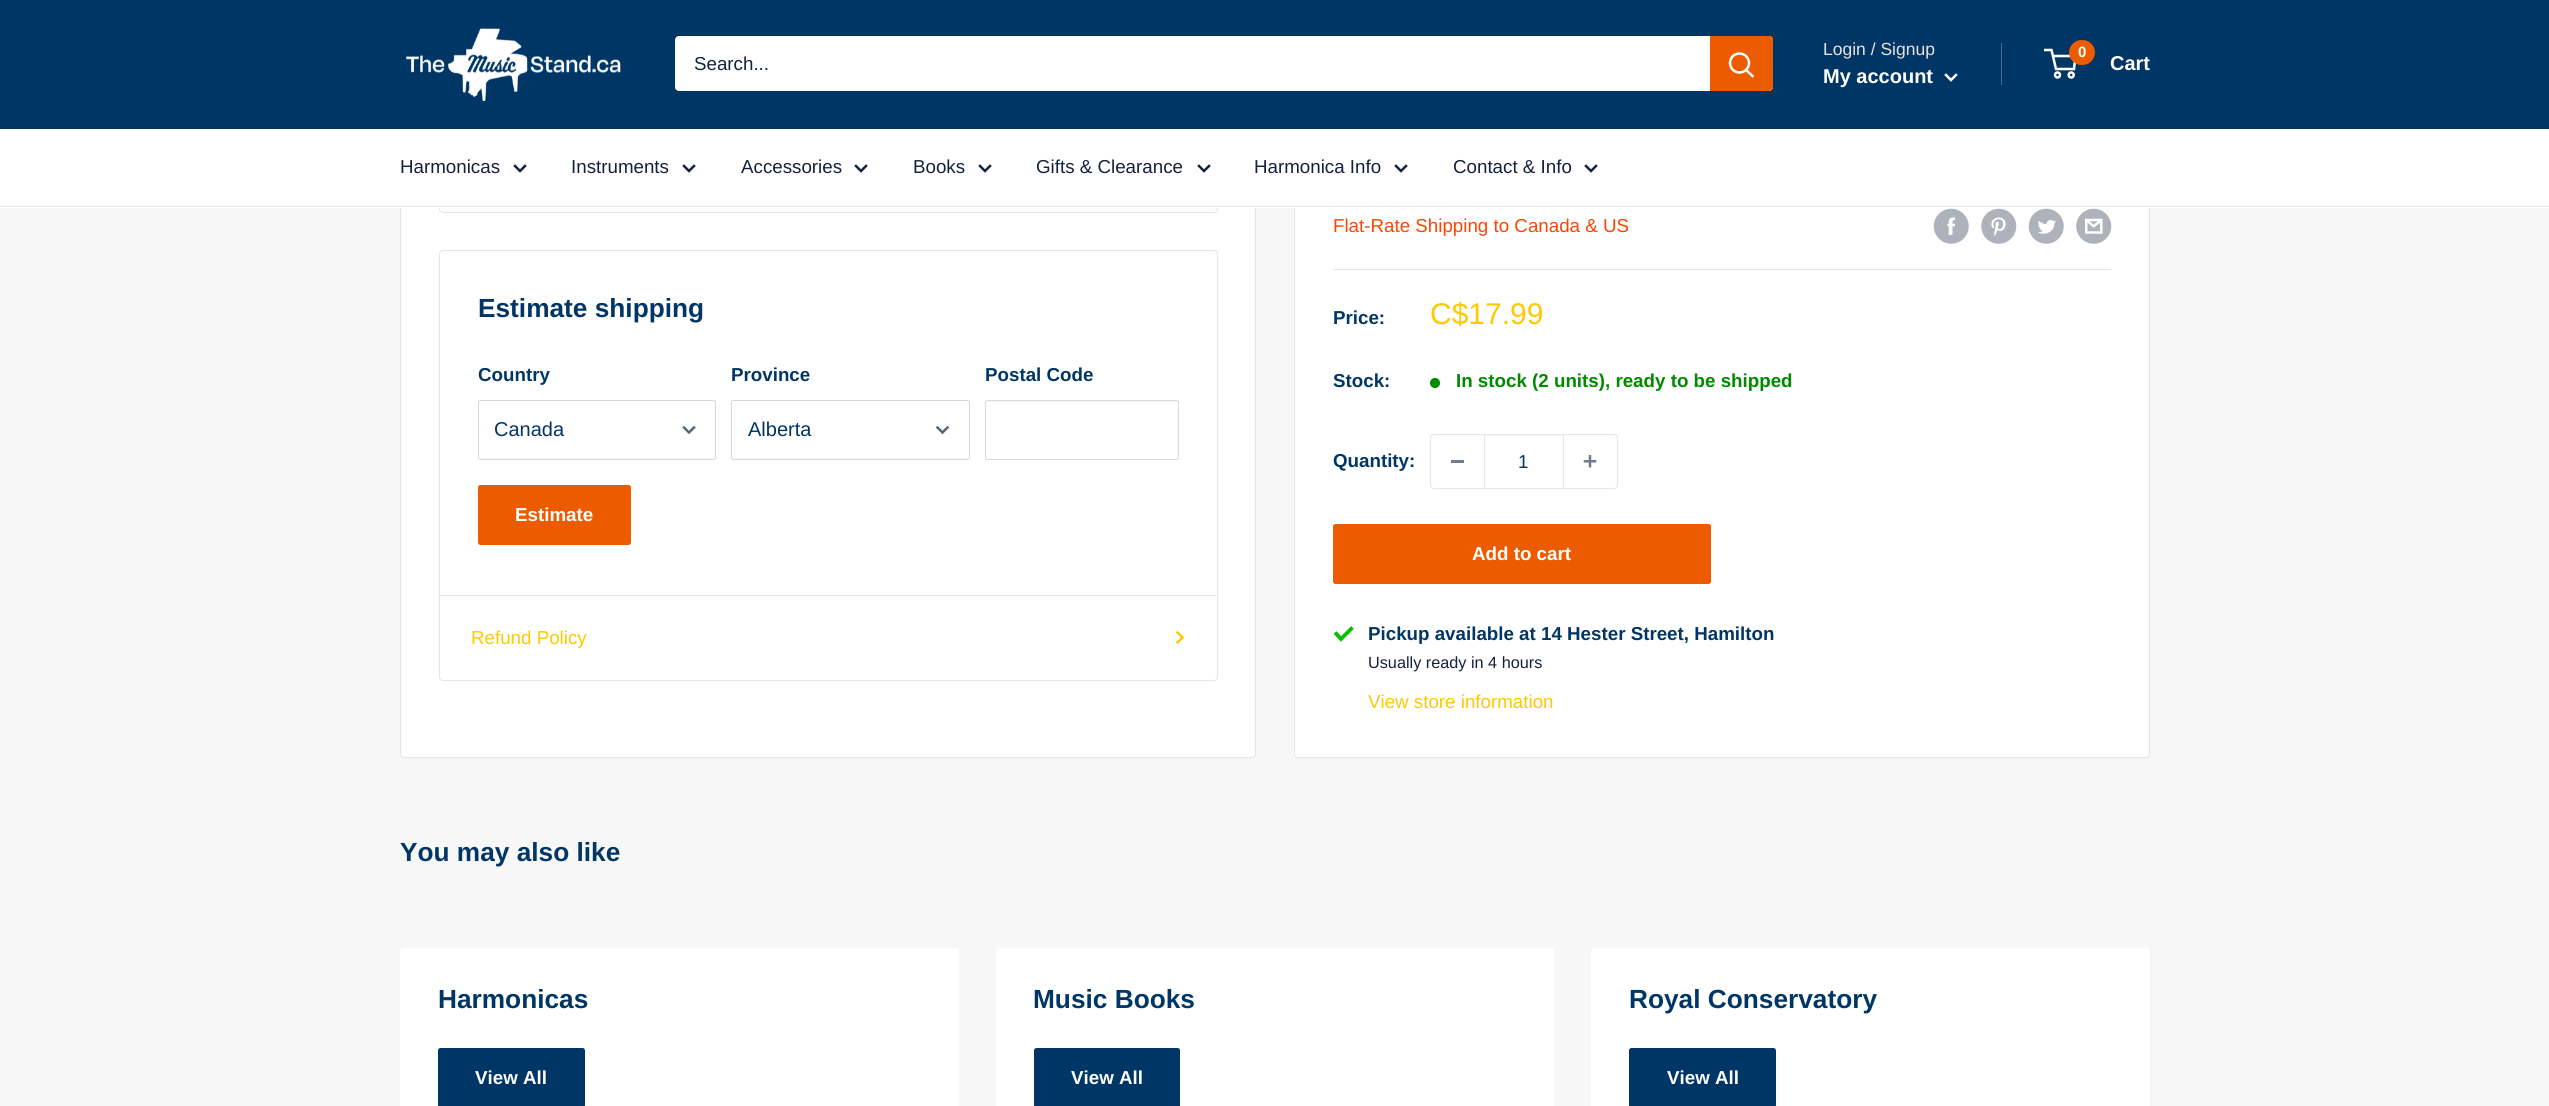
import math
import cairo

surface = cairo.ImageSurface(cairo.Format.RGB24, 2549, 1106)
ctx = cairo.Context(surface)
options = cairo.FontOptions()
options.set_hint_metrics(cairo.HintMetrics.OFF)
options.set_hint_style(cairo.HintStyle.NONE)
ctx.set_font_options(options)
ctx.set_miter_limit(4)


def ink(r, g, b):
    ctx.set_source_rgb(r / 255, g / 255, b / 255)


def write(x, y, s, family, size, color, bold=False, italic=False):
    ctx.select_font_face(family, cairo.FontSlant.ITALIC if italic else cairo.FontSlant.NORMAL, cairo.FontWeight.BOLD if bold else cairo.FontWeight.NORMAL)
    ctx.set_font_size(size)
    ink(*color)
    ctx.move_to(x, y)
    ctx.show_text(s)


def block(x, y, w, h, *color):
    ink(*color)
    ctx.rectangle(x, y, w, h)
    ctx.fill()


def round_path(x, y, w, h, r):
    ctx.new_sub_path()
    for i, (u, v) in enumerate([(x + w - r, y + h - r), (x + r, y + h - r), (x + r, y + r), (x + w - r, y + r)]):
        ctx.arc(u, v, r, i * math.pi / 2, (i + 1) * math.pi / 2)
    ctx.close_path()


def paste(path, x, y, w, h):
    ctx.save()
    ctx.set_source_surface(cairo.ImageSurface.create_from_png(path), x, y)
    ctx.rectangle(x, y, w, h)
    ctx.fill()
    ctx.restore()


s1 = dict(family="Liberation Sans", size=18.75, color=(20, 33, 61))
s2 = dict(family="Liberation Sans", size=17.5, color=(233, 226, 221))
s3 = dict(family="Liberation Sans", size=20, color=(255, 255, 255), bold=True)
s4 = dict(family="Liberation Sans", size=15, color=(255, 255, 255), bold=True)
s5 = dict(family="Liberation Sans", size=26.25, color=(0, 54, 102), bold=True)
s6 = dict(family="Liberation Sans", size=18.75, color=(0, 54, 102), bold=True)
s7 = dict(family="Liberation Sans", size=20, color=(0, 54, 102))
s8 = dict(family="Liberation Sans", size=18.75, color=(255, 255, 255), bold=True)
s9 = dict(family="Liberation Sans", size=18.75, color=(255, 201, 0))
s10 = dict(family="Liberation Sans", size=18.75, color=(255, 69, 0))
s11 = dict(family="Liberation Sans", size=30, color=(255, 201, 0))
s12 = dict(family="Liberation Sans", size=18.75, color=(0, 138, 0), bold=True)
s13 = dict(family="Liberation Sans", size=18.75, color=(0, 54, 102))
s14 = dict(family="Liberation Sans", size=16.25, color=(20, 33, 61))

ink(247, 247, 247)
ctx.paint()
ink(255, 255, 255)
round_path(400.5, -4.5, 855, 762, 3.5)
ctx.fill_preserve()
ink(229, 229, 229)
ctx.set_line_width(1)
ctx.stroke()
round_path(439.5, -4.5, 778, 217, 3.5)
ctx.stroke()
ink(255, 255, 255)
round_path(1294.5, 19.5, 855, 738, 3.5)
ctx.fill_preserve()
ink(229, 229, 229)
ctx.stroke()
block(0, 0, 2549, 129, 0, 54, 102)
paste("pic1.png", 406, 28, 215, 74)
ink(255, 255, 255)
round_path(675, 36, 1098, 55, 4)
ctx.fill()
write(694, 70, "Search...", **s1)
ink(237, 91, 0)
ctx.new_path()
ctx.move_to(1710, 36)
ctx.line_to(1769, 36)
ctx.curve_to(1771, 36, 1773, 38, 1773, 40)
ctx.line_to(1773, 87)
ctx.curve_to(1773, 89, 1771, 91, 1769, 91)
ctx.line_to(1710, 91)
ctx.close_path()
ctx.fill()
ctx.new_path()
ctx.move_to(1752.5, 76)
ctx.line_to(1746, 70)
ink(255, 255, 255)
ctx.set_line_width(2.5)
ctx.set_line_cap(cairo.LineCap.SQUARE)
ctx.stroke()
ctx.arc(1739.5, 63, 9.5, 0, 2 * math.pi)
ctx.set_line_cap(cairo.LineCap.BUTT)
ctx.stroke()
write(1823, 55, "Login / Signup", **s2)
block(2001, 43, 1, 42, 70, 106, 138)
write(1823, 83, "My account", **s3)
ctx.new_path()
ctx.move_to(1956, 75)
ctx.line_to(1951, 80)
ctx.line_to(1946, 75)
ctx.set_line_cap(cairo.LineCap.SQUARE)
ctx.stroke()
ctx.arc(2057.5, 75, 2.5, 0, 2 * math.pi)
ctx.set_line_cap(cairo.LineCap.BUTT)
ctx.stroke()
ctx.arc(2071.2, 75, 2.5, 0, 2 * math.pi)
ctx.stroke()
ctx.new_path()
ctx.move_to(2053, 56)
ctx.line_to(2075.5, 56)
ctx.line_to(2074, 69)
ctx.line_to(2056, 69)
ctx.line_to(2051.5, 50)
ctx.line_to(2044, 50)
ctx.stroke()
ink(237, 91, 0)
round_path(2069, 40, 26, 25, 12.5)
ctx.fill()
write(2078, 57, "0", **s4)
write(2110, 70, "Cart", **s3)
block(0, 129, 2549, 79, 255, 255, 255)
block(0, 206, 2549, 1, 229, 229, 229)
write(400, 173, "Harmonicas", **s1)
ctx.new_path()
ctx.move_to(525, 166)
ctx.line_to(520, 171)
ctx.line_to(515, 166)
ctx.set_line_cap(cairo.LineCap.SQUARE)
ctx.stroke()
write(571, 173, "Instruments", **s1)
ctx.new_path()
ctx.move_to(694, 166)
ctx.line_to(689, 171)
ctx.line_to(684, 166)
ctx.stroke()
write(741, 173, "Accessories", **s1)
ctx.new_path()
ctx.move_to(866, 166)
ctx.line_to(861, 171)
ctx.line_to(856, 166)
ctx.stroke()
write(913, 173, "Books", **s1)
ctx.new_path()
ctx.move_to(990, 166)
ctx.line_to(985, 171)
ctx.line_to(980, 166)
ctx.stroke()
write(1036, 173, "Gifts & Clearance", **s1)
ctx.new_path()
ctx.move_to(1209, 166)
ctx.line_to(1204, 171)
ctx.line_to(1199, 166)
ctx.stroke()
write(1254, 173, "Harmonica Info", **s1)
ctx.new_path()
ctx.move_to(1406, 166)
ctx.line_to(1401, 171)
ctx.line_to(1396, 166)
ctx.stroke()
write(1453, 173, "Contact & Info", **s1)
ctx.new_path()
ctx.move_to(1596, 166)
ctx.line_to(1591, 171)
ctx.line_to(1586, 166)
ctx.stroke()
round_path(439.5, 250.5, 778, 430, 3.5)
ink(229, 229, 229)
ctx.set_line_width(1)
ctx.set_line_cap(cairo.LineCap.BUTT)
ctx.stroke()
write(478, 317, "Estimate shipping", **s5)
write(478, 381, "Country", **s6)
ink(247, 247, 247)
ctx.new_path()
ctx.move_to(479, 456)
ctx.line_to(479, 458)
ctx.curve_to(479, 459, 479, 459, 480, 459)
ctx.line_to(714, 459)
ctx.curve_to(715, 459, 715, 459, 715, 458)
ctx.line_to(715, 456)
ctx.line_to(714, 458)
ctx.line_to(480, 458)
ctx.curve_to(479, 458, 479, 457, 479, 456)
ctx.close_path()
ctx.fill()
round_path(478.5, 400.5, 237, 59, 2)
ink(216, 216, 216)
ctx.stroke()
write(494, 436, "Canada", **s7)
ctx.new_path()
ctx.move_to(694, 427.5)
ctx.line_to(689, 432.5)
ctx.line_to(684, 427.5)
ink(91, 100, 119)
ctx.set_line_width(2.5)
ctx.set_line_cap(cairo.LineCap.SQUARE)
ctx.stroke()
write(731, 381, "Province", **s6)
ink(247, 247, 247)
ctx.new_path()
ctx.move_to(733, 458)
ctx.curve_to(733, 459, 733, 459, 734, 459)
ctx.line_to(968, 459)
ctx.curve_to(969, 459, 969, 459, 969, 458)
ctx.line_to(969, 456)
ctx.line_to(968, 458)
ctx.close_path()
ctx.fill()
round_path(731.5, 400.5, 238, 59, 2)
ink(216, 216, 216)
ctx.set_line_width(1)
ctx.set_line_cap(cairo.LineCap.BUTT)
ctx.stroke()
write(748, 436, "Alberta", **s7)
ctx.new_path()
ctx.move_to(947.5, 427.5)
ctx.line_to(942.5, 432.5)
ctx.line_to(937.5, 427.5)
ink(91, 100, 119)
ctx.set_line_width(2.5)
ctx.set_line_cap(cairo.LineCap.SQUARE)
ctx.stroke()
write(985, 381, "Postal Code", **s6)
ink(249, 249, 249)
ctx.new_path()
ctx.move_to(988, 402)
ctx.line_to(1176, 402)
ctx.line_to(1178, 403)
ctx.line_to(1178, 404)
ctx.curve_to(1178, 403, 1178, 401, 1177, 401)
ctx.line_to(987, 401)
ctx.curve_to(986, 401, 986, 403, 986, 404)
ctx.curve_to(986, 403, 987, 402, 988, 402)
ctx.close_path()
ctx.fill()
round_path(985.5, 400.5, 193, 59, 2)
ink(216, 216, 216)
ctx.set_line_width(1)
ctx.set_line_cap(cairo.LineCap.BUTT)
ctx.stroke()
ink(237, 91, 0)
round_path(478, 485, 153, 60, 2.5)
ctx.fill()
write(515, 521, "Estimate", **s8)
block(440, 595, 776, 1, 229, 229, 229)
write(471, 644, "Refund Policy", **s9)
ctx.new_path()
ctx.move_to(1177.5, 632.5)
ctx.line_to(1182.5, 637.5)
ctx.line_to(1177.5, 642.5)
ctx.set_line_width(2.5)
ctx.set_line_cap(cairo.LineCap.SQUARE)
ctx.stroke()
write(1333, 232, "Flat-Rate Shipping to Canada & US", **s10)
paste("pic2.png", 1933, 208, 36, 36)
paste("pic3.png", 1981, 208, 36, 36)
paste("pic4.png", 2028, 208, 36, 36)
paste("pic5.png", 2076, 208, 36, 36)
block(1333, 269, 778, 1, 229, 229, 229)
write(1333, 324, "Price:", **s6)
write(1430, 324, "C$17.99", **s11)
write(1333, 387, "Stock:", **s6)
ink(0, 138, 0)
ctx.new_path()
ctx.arc(1435, 383, 5, 0, 2 * math.pi)
ctx.fill()
write(1456, 387, "In stock (2 units), ready to be shipped", **s12)
write(1333, 467, "Quantity:", **s6)
round_path(1430.5, 434.5, 187, 54, 3.5)
ink(229, 229, 229)
ctx.set_line_width(1)
ctx.set_line_cap(cairo.LineCap.BUTT)
ctx.stroke()
block(1451, 460, 13, 3, 114, 122, 139)
block(1485, 435, 78, 1, 245, 245, 245)
block(1563, 435, 1, 53, 229, 229, 229)
block(1484, 435, 1, 53, 229, 229, 229)
write(1518, 468, "1", **s13)
paste("pic6.png", 1583, 455, 14, 13)
ink(237, 91, 0)
round_path(1333, 524, 378, 60, 2.5)
ctx.fill()
write(1472, 560, "Add to cart", **s8)
ctx.new_path()
ctx.move_to(1335, 632.5)
ctx.line_to(1341, 639)
ctx.line_to(1352.5, 627.5)
ink(0, 194, 0)
ctx.set_line_width(3.8)
ctx.stroke()
write(1368, 640, "Pickup available at 14 Hester Street, Hamilton", **s6)
write(1368, 668, "Usually ready in 4 hours", **s14)
write(1368, 708, "View store information", **s9)
write(400, 861, "You may also like", **s5)
ink(255, 255, 255)
round_path(400, 948, 559, 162, 4)
ctx.fill()
write(438, 1008, "Harmonicas", **s5)
round_path(438, 1048, 147, 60, 2.5)
ctx.fill()
write(475, 1084, "View All", **s8)
round_path(996, 948, 558, 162, 4)
ctx.fill()
write(1033, 1008, "Music Books", **s5)
round_path(1034, 1048, 146, 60, 2.5)
ctx.fill()
write(1071, 1084, "View All", **s8)
round_path(1591, 948, 559, 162, 4)
ctx.fill()
write(1629, 1008, "Royal Conservatory", **s5)
round_path(1629, 1048, 147, 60, 2.5)
ctx.fill()
write(1667, 1084, "View All", **s8)
surface.write_to_png("screenshot.png")
